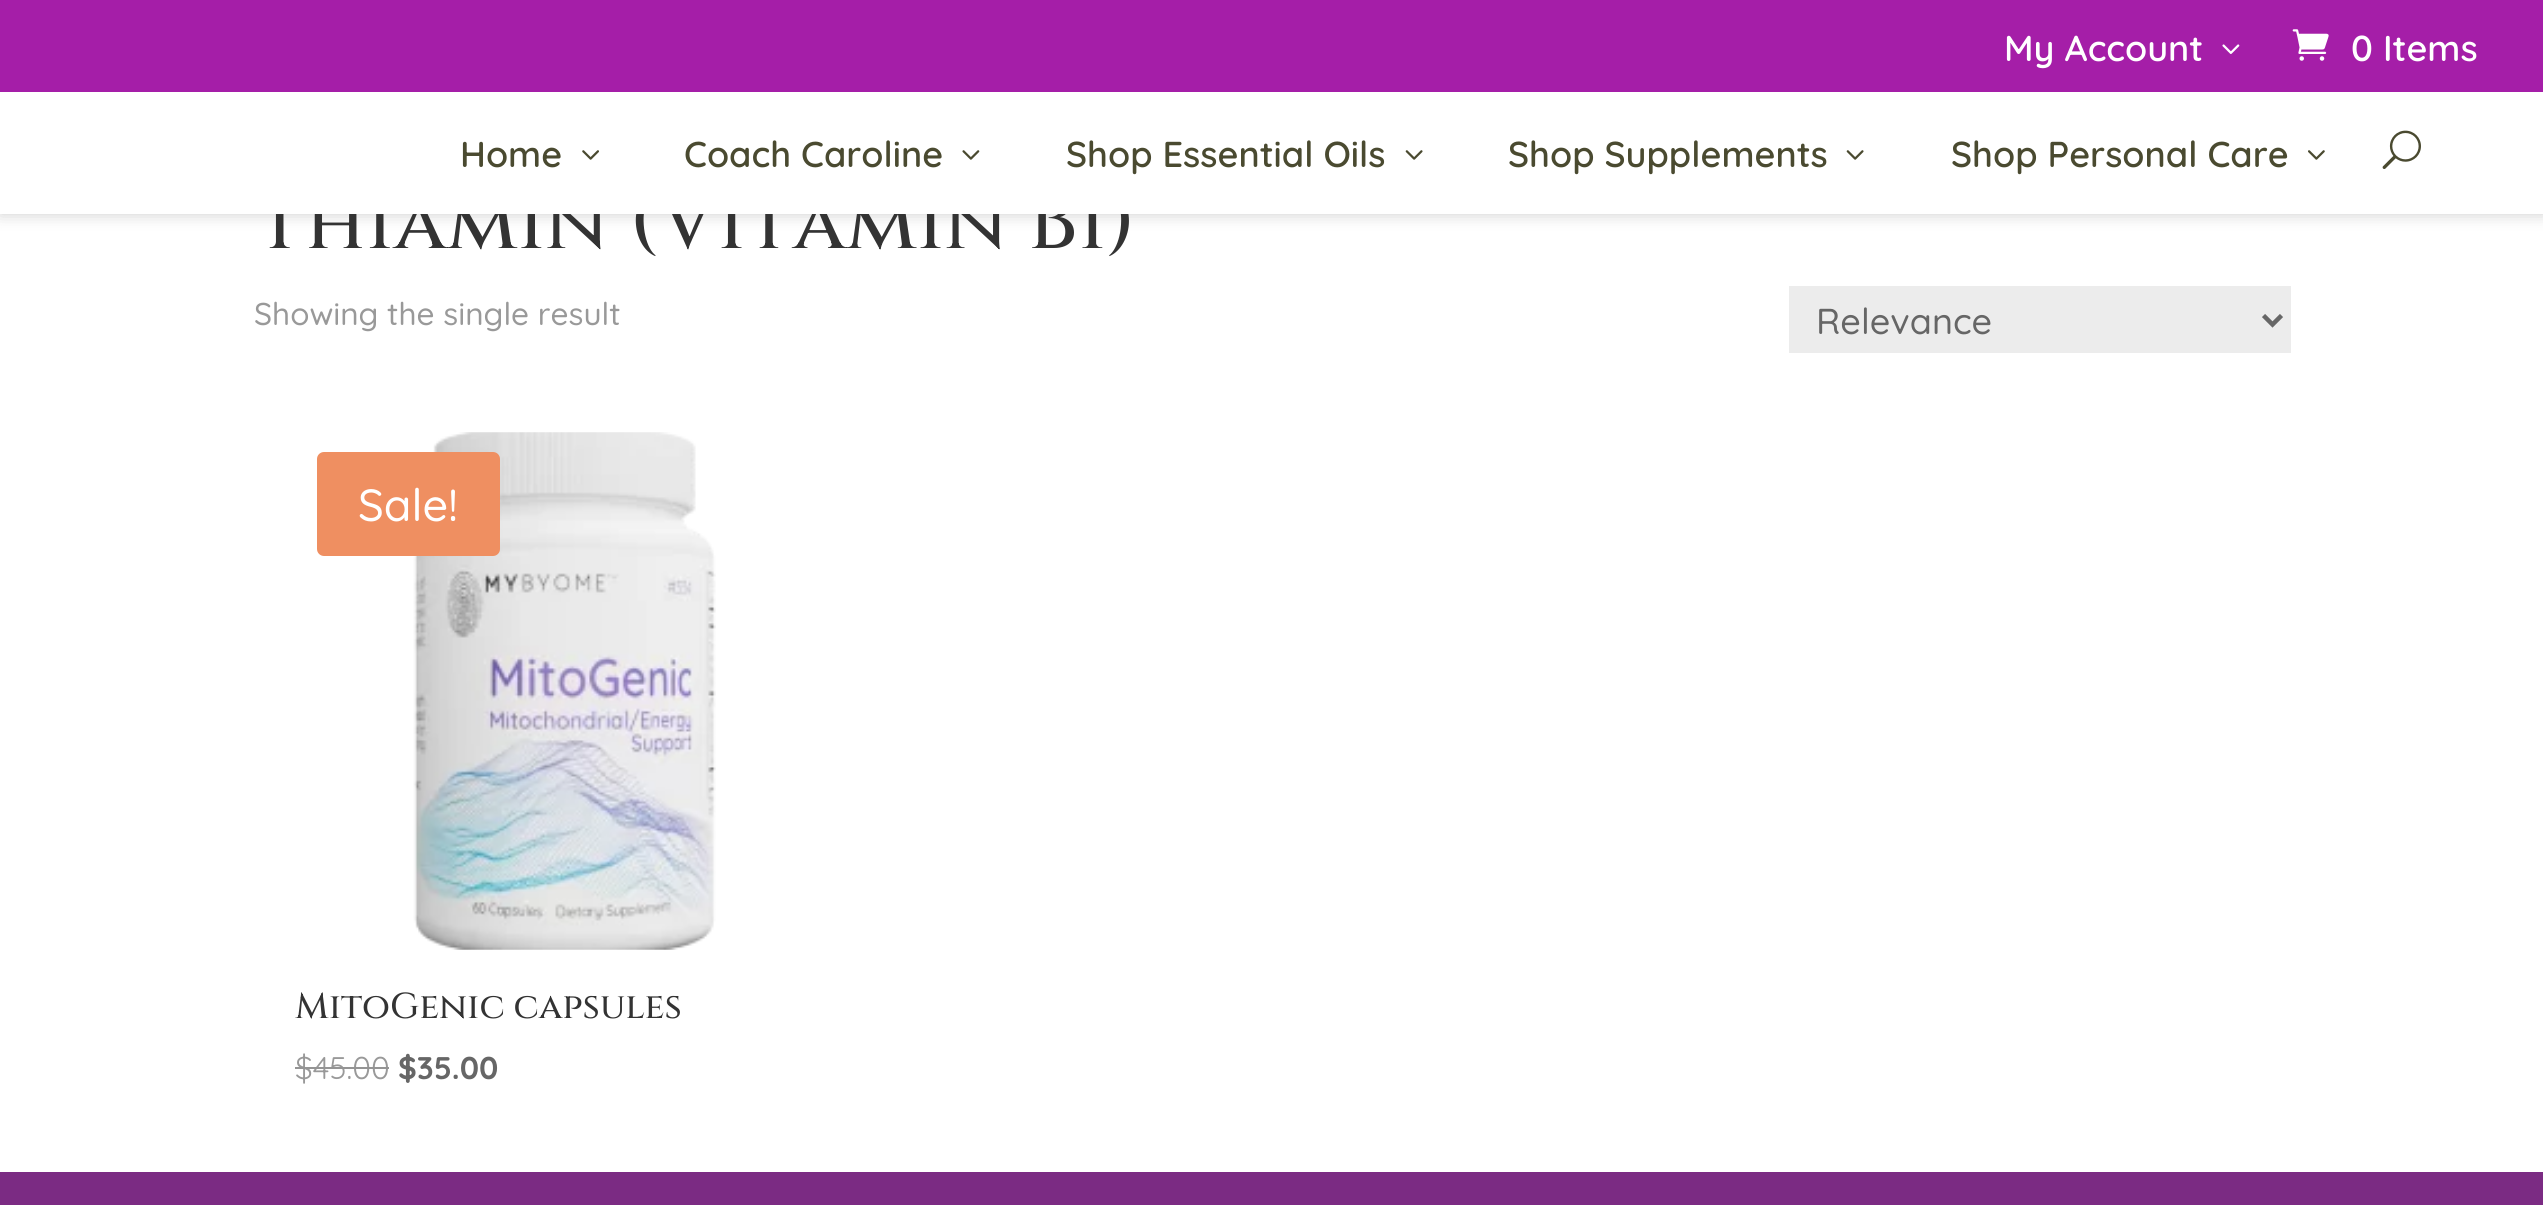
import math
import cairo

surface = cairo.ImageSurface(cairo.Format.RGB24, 2543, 1205)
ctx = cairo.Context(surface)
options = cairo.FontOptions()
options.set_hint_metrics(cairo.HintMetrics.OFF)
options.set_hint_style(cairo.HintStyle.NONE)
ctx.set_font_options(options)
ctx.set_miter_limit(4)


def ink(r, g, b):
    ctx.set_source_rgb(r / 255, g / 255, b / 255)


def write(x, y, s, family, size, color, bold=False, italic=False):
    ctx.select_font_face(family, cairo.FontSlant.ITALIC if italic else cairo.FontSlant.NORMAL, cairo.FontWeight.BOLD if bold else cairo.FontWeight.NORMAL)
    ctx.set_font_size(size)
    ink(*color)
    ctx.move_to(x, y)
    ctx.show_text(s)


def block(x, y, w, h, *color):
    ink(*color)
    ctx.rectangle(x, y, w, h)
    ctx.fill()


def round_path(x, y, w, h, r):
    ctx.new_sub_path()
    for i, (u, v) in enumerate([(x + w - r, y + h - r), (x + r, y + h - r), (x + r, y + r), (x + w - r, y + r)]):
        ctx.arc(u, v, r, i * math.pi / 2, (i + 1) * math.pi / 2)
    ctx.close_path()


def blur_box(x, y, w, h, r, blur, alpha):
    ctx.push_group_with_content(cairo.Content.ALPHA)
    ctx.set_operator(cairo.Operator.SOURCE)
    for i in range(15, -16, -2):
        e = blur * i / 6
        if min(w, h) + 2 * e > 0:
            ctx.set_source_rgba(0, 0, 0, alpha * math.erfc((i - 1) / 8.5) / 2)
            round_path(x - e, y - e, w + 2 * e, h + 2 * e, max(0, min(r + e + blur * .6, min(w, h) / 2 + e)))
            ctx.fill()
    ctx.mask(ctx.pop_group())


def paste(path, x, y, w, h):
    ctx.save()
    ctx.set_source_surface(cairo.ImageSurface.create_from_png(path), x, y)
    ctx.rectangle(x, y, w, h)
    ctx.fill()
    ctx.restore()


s1 = dict(family="Quicksand SemiBold", size=36, color=(255, 255, 255))
s2 = dict(family="Cinzel Medium", size=81, color=(51, 51, 51))
s3 = dict(family="Quicksand SemiBold", size=36, color=(74, 74, 48))
s4 = dict(family="Quicksand Light", size=31.5, color=(153, 153, 153))
s5 = dict(family="Quicksand Light", size=36, color=(102, 102, 102))
s6 = dict(family="Quicksand Light", size=45, color=(255, 255, 255))
s7 = dict(family="Cinzel Medium", size=36, color=(51, 51, 51))
s8 = dict(family="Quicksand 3 Light", size=31.5, color=(153, 153, 153))
s9 = dict(family="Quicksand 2 Light", size=31.5, color=(102, 102, 102))

ink(255, 255, 255)
ctx.paint()
ink(0, 0, 0)
blur_box(0, 92, 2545, 122, 0, 8, 0.2)
block(0, 0, 2543, 92, 165, 30, 168)
write(2004, 61, "My Account", **s1)
paste("pic1.png", 2222, 44, 18, 10)
paste("pic2.png", 2292, 29, 37, 32)
write(2351, 61, "0 Items", **s1)
write(254, 248, "Thiamin (Vitamin B1)", **s2)
block(0, 92, 2543, 122, 255, 255, 255)
write(460, 167, "Home", **s3)
paste("pic3.png", 582, 150, 17, 10)
write(684, 167, "Coach Caroline", **s3)
paste("pic4.png", 962, 150, 18, 10)
write(1066, 167, "Shop Essential Oils", **s3)
paste("pic5.png", 1405, 150, 18, 10)
write(1508, 167, "Shop Supplements", **s3)
paste("pic5.png", 1846, 150, 18, 10)
write(1951, 167, "Shop Personal Care", **s3)
paste("pic6.png", 2308, 150, 17, 10)
paste("pic7.png", 2382, 130, 39, 39)
write(254, 325, "Showing the single result", **s4)
block(1789, 286, 502, 67, 236, 236, 236)
ctx.new_path()
ctx.move_to(2263.5, 315.5)
ctx.line_to(2272.5, 324.5)
ctx.line_to(2281.5, 315.5)
ink(102, 102, 102)
ctx.set_line_width(4.5)
ctx.stroke()
write(1816, 334, "Relevance", **s5)
paste("pic8.png", 413, 432, 303, 518)
ink(239, 143, 97)
round_path(317, 452, 183, 104, 7)
ctx.fill()
write(358, 521, "Sale!", **s6)
write(295, 1018, "MitoGenic capsules", **s7)
write(295, 1079, "$45.00", **s8)
block(295, 1067, 94, 2, 148, 148, 148)
write(398, 1079, "$35.00", **s9)
block(0, 1172, 2543, 33, 123, 43, 131)
surface.write_to_png("screenshot.png")
